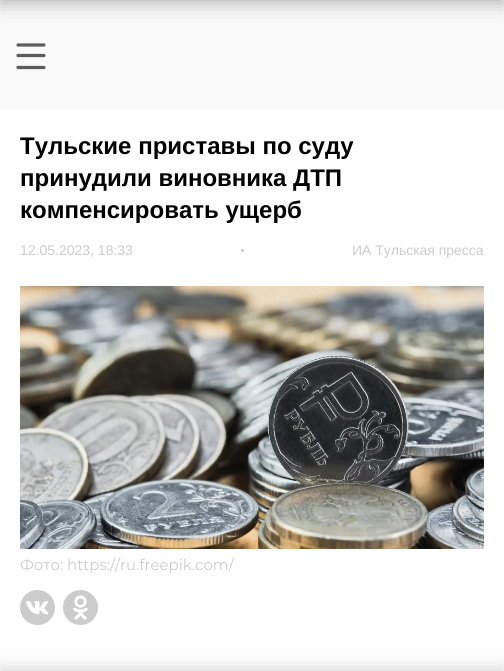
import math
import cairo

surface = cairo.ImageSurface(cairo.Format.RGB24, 504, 671)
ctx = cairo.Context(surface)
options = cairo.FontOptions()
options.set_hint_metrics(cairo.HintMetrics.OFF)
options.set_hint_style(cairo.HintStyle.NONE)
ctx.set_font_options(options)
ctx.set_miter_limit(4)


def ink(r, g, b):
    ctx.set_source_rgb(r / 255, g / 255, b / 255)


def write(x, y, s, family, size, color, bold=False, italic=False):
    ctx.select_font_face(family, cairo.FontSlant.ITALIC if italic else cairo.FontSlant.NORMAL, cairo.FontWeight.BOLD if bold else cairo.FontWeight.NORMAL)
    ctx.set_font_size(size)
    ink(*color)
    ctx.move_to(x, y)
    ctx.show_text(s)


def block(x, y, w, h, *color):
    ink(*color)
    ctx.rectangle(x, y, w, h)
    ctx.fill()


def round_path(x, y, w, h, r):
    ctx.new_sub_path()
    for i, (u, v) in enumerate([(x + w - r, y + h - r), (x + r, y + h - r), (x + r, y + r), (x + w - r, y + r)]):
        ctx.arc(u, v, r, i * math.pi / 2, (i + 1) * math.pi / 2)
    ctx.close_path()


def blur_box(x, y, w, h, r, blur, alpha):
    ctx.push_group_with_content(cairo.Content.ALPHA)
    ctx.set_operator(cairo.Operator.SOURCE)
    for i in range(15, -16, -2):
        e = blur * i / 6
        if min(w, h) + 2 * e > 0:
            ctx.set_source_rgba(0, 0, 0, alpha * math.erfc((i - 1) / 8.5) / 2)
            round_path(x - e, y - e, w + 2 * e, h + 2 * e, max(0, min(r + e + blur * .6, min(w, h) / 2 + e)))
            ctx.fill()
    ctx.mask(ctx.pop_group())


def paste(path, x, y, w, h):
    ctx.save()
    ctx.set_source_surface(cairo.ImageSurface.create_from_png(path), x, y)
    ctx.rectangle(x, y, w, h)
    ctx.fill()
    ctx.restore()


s1 = dict(family="Liberation Sans", size=24, color=(0, 0, 0), bold=True)
s2 = dict(family="Liberation Sans", size=14, color=(204, 204, 204))
s3 = dict(family="Montserrat", size=15, color=(204, 204, 204))

ink(249, 249, 249)
ctx.paint()
ink(0, 0, 0)
blur_box(0, -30, 504, 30, 0, 10, 0.2)
blur_box(0, -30, 504, 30, 0, 10, 0.2)
ctx.new_path()
ctx.move_to(18, 45)
ctx.line_to(44, 45)
ctx.move_to(18, 55.5)
ctx.line_to(44, 55.5)
ctx.move_to(18, 67.5)
ctx.line_to(44, 67.5)
ink(92, 92, 92)
ctx.set_line_width(3.2)
ctx.set_line_cap(cairo.LineCap.ROUND)
ctx.stroke()
block(0, 110, 504, 561, 255, 255, 255)
write(20, 154, "Тульские приставы по суду", **s1)
write(20, 186, "принудили виновника ДТП", **s1)
write(20, 218, "компенсировать ущерб", **s1)
write(20, 255, "12.05.2023, 18:33", **s2)
ctx.new_path()
ctx.arc(242.5, 250.5, 1.5, 0, 2 * math.pi)
ctx.fill()
write(352, 255, "ИА Тульская пресса", **s2)
paste("pic1.png", 20, 286, 464, 263)
write(20, 570, "Фото: https://ru.freepik.com/", **s3)
paste("pic2.png", 20, 590, 35, 35)
paste("pic3.png", 63, 590, 35, 35)
ink(0, 0, 0)
blur_box(0, 671, 504, 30, 0, 10, 0.2)
surface.write_to_png("screenshot.png")
